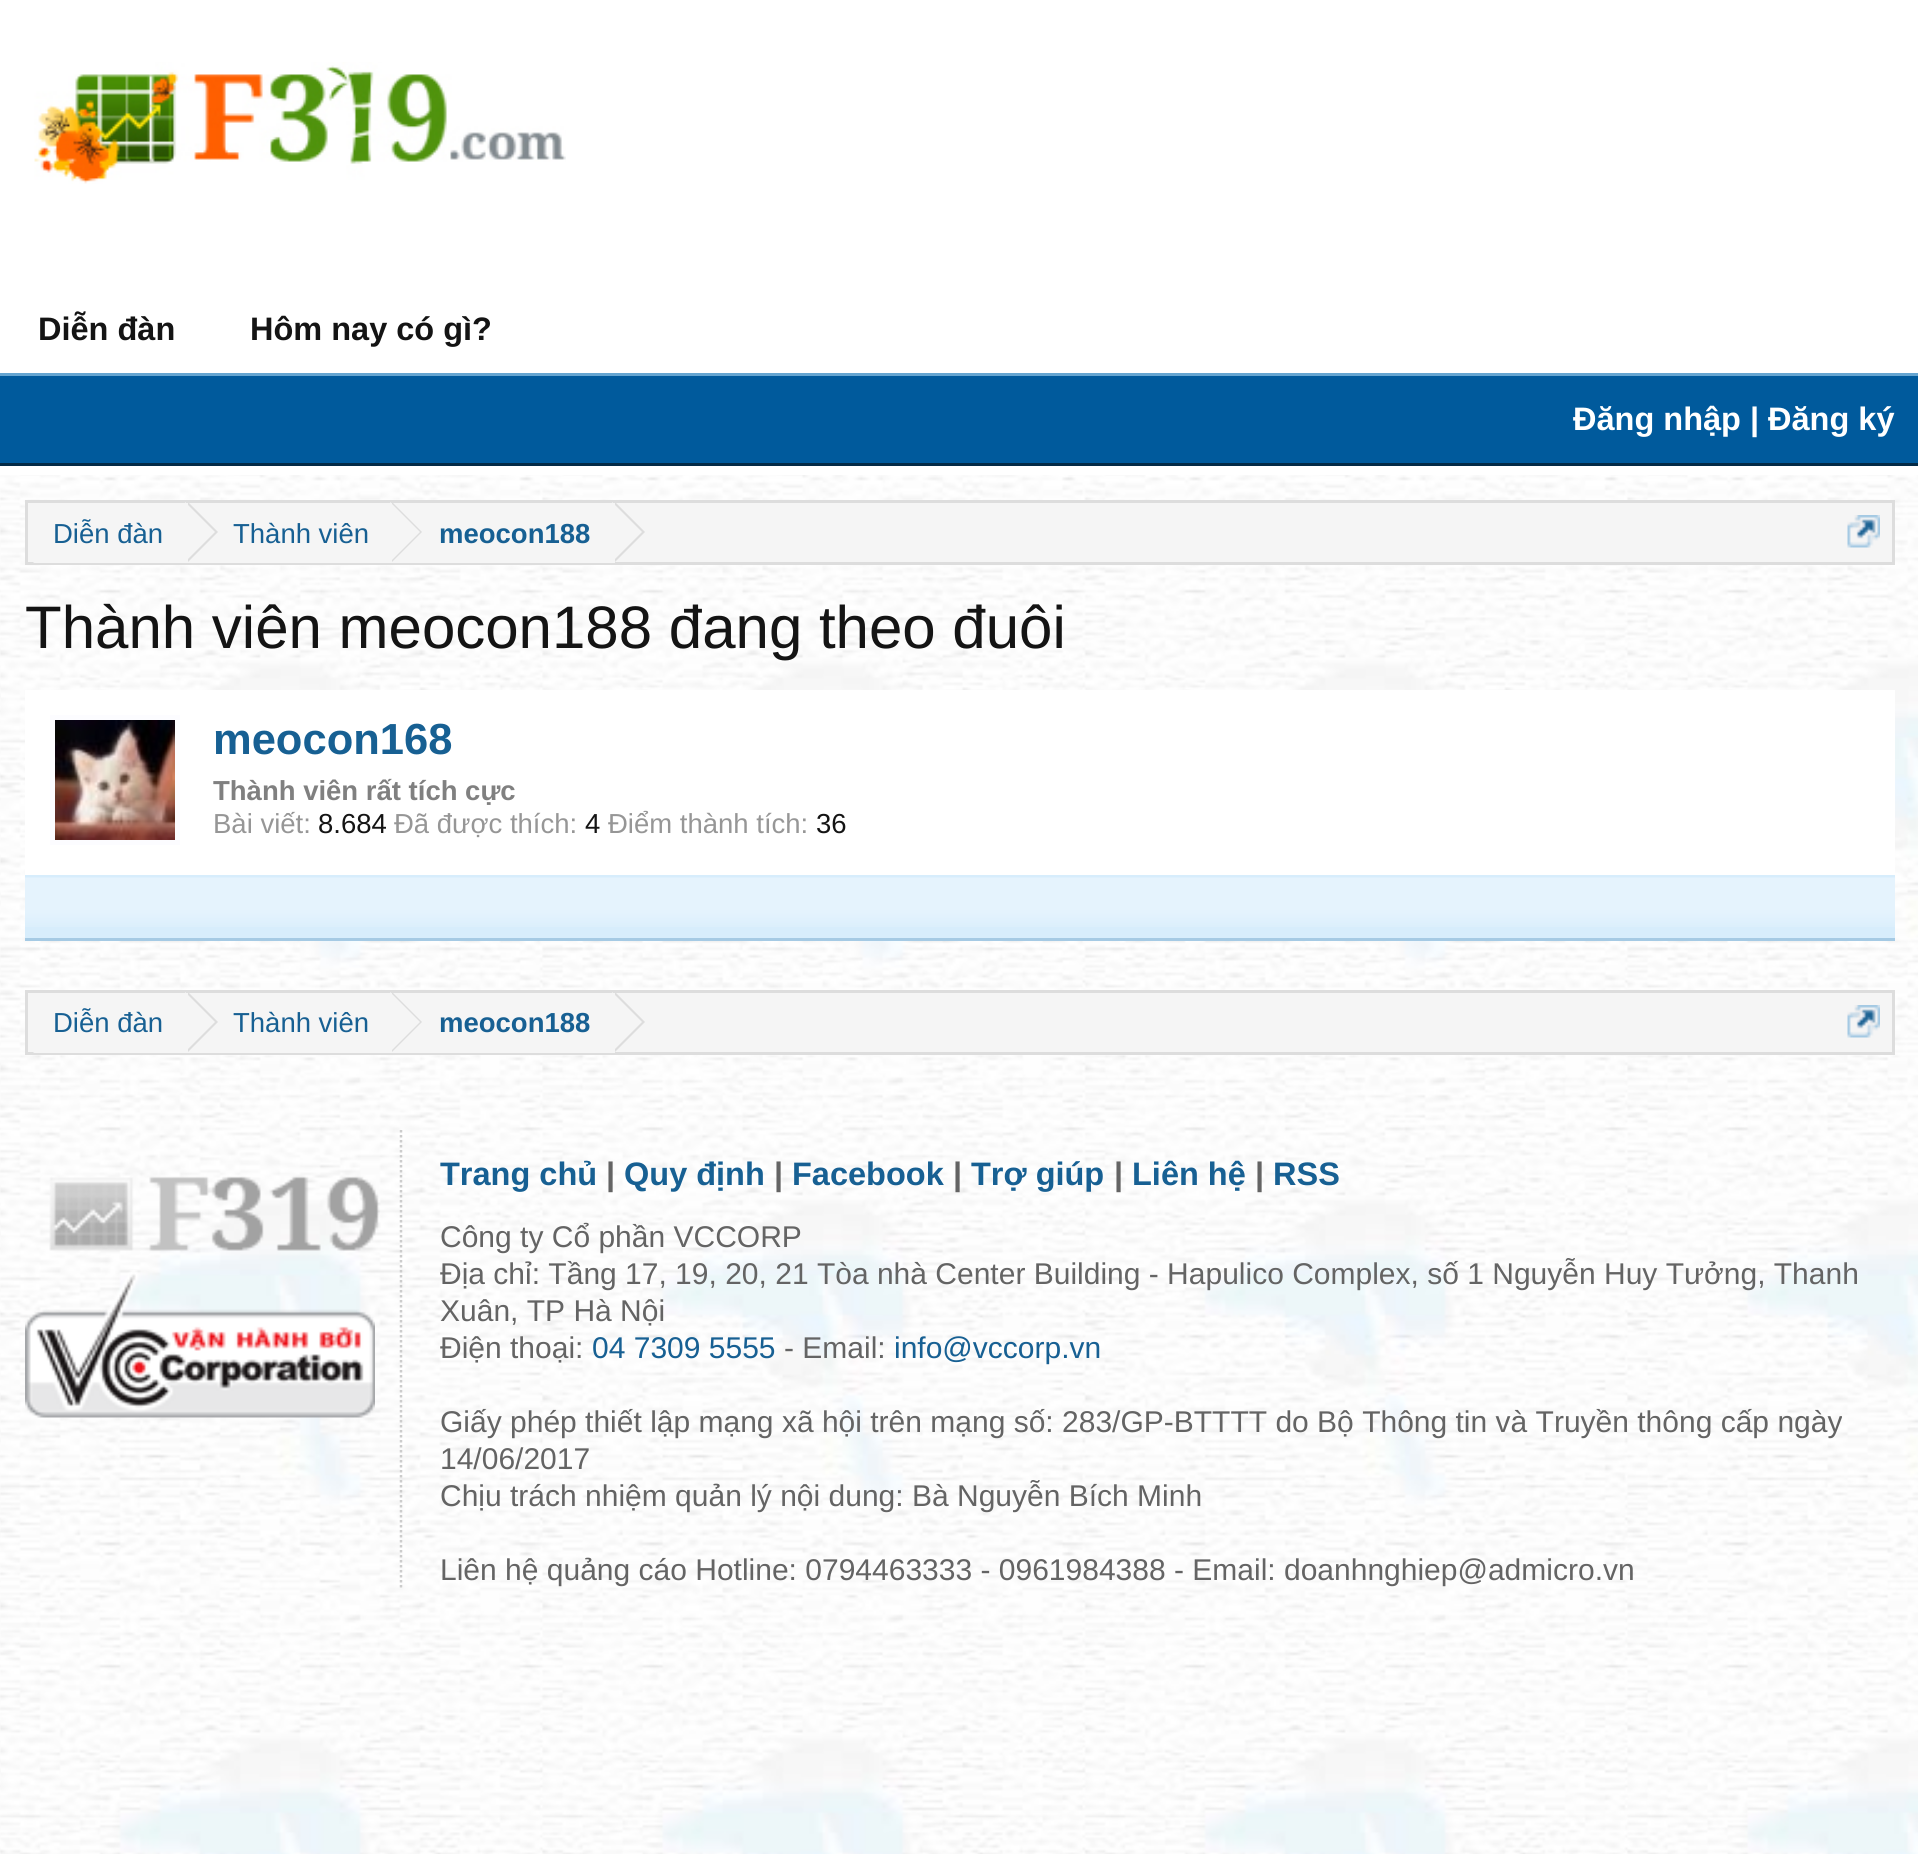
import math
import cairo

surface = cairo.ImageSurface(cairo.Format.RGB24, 1918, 1854)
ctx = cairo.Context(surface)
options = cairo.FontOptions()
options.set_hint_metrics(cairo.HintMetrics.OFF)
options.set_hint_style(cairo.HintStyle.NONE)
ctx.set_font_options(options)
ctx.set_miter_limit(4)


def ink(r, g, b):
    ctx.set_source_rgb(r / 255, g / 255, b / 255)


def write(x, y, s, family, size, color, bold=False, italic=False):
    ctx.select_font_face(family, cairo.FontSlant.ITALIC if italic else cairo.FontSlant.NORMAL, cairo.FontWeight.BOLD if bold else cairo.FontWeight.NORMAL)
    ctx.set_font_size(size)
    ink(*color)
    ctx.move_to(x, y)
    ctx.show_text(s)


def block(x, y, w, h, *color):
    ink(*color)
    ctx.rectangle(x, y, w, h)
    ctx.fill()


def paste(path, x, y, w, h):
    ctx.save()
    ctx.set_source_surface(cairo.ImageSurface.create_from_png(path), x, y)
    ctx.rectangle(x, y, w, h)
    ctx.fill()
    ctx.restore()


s1 = dict(family="Liberation Sans", size=32.5, color=(20, 20, 20), bold=True)
s2 = dict(family="Liberation Sans", size=32.5, color=(255, 255, 255), bold=True)
s3 = dict(family="Liberation Sans", size=27.5, color=(23, 96, 147))
s4 = dict(family="Liberation Sans", size=27.5, color=(23, 96, 147), bold=True)
s5 = dict(family="Liberation Sans", size=60, color=(20, 20, 20))
s6 = dict(family="Liberation Sans", size=43.5, color=(23, 96, 147), bold=True)
s7 = dict(family="Liberation Sans", size=27.5, color=(128, 128, 128), bold=True)
s8 = dict(family="Liberation Sans", size=27.5, color=(150, 150, 150))
s9 = dict(family="Liberation Sans", size=27.5, color=(20, 20, 20))
s10 = dict(family="Liberation Sans", size=32.5, color=(23, 96, 147), bold=True)
s11 = dict(family="Liberation Sans", size=32.5, color=(100, 100, 100), bold=True)
s12 = dict(family="Liberation Sans", size=30, color=(100, 100, 100))
s13 = dict(family="Liberation Sans", size=30, color=(23, 96, 147))

ink(255, 255, 255)
ctx.paint()
paste("pic1.png", 0, 475, 1918, 1379)
paste("pic2.png", 34, 62, 532, 122)
write(38, 340, "Diễn đàn", **s1)
write(250, 340, "Hôm nay có gì?", **s1)
block(0, 376, 1918, 87, 0, 90, 156)
write(1573, 430, "Đăng nhập | Đăng ký", **s2)
block(0, 373, 1918, 3, 101, 165, 209)
block(0, 463, 1918, 3, 3, 42, 70)
ink(245, 245, 245)
ctx.rectangle(26.5, 501.5, 1867, 62)
ctx.fill_preserve()
ink(221, 221, 221)
ctx.set_line_width(3)
ctx.stroke()
ctx.save()
ctx.rectangle(28, 503, 1865, 60)
ctx.clip()
ink(245, 245, 245)
ctx.new_path()
ctx.move_to(41, 503)
ctx.line_to(188, 503)
ctx.line_to(188, 565)
ctx.line_to(41, 565)
ctx.curve_to(34, 565, 28, 559, 28, 552)
ctx.line_to(28, 516)
ctx.curve_to(28, 509, 34, 503, 41, 503)
ctx.close_path()
ctx.fill()
ctx.restore()
write(53, 543, "Diễn đàn", **s3)
ink(221, 221, 221)
ctx.new_path()
ctx.move_to(188, 562)
ctx.line_to(188, 502)
ctx.line_to(218, 532)
ctx.close_path()
ctx.fill()
ink(245, 245, 245)
ctx.new_path()
ctx.move_to(185, 562)
ctx.line_to(185, 502)
ctx.line_to(215, 532)
ctx.close_path()
ctx.fill()
block(188, 562, 427, 1, 245, 245, 245)
write(233, 543, "Thành viên", **s3)
ink(221, 221, 221)
ctx.new_path()
ctx.move_to(392, 562)
ctx.line_to(392, 502)
ctx.line_to(422, 532)
ctx.close_path()
ctx.fill()
ink(245, 245, 245)
ctx.new_path()
ctx.move_to(390, 562)
ctx.line_to(390, 502)
ctx.line_to(420, 532)
ctx.close_path()
ctx.fill()
write(439, 543, "meocon188", **s4)
ink(221, 221, 221)
ctx.new_path()
ctx.move_to(615, 562)
ctx.line_to(615, 502)
ctx.line_to(645, 532)
ctx.close_path()
ctx.fill()
ink(245, 245, 245)
ctx.new_path()
ctx.move_to(612, 562)
ctx.line_to(612, 502)
ctx.line_to(642, 532)
ctx.close_path()
ctx.fill()
paste("pic3.png", 1847, 515, 33, 33)
write(25, 648, "Thành viên meocon188 đang theo đuôi", **s5)
block(25, 690, 1870, 185, 255, 255, 255)
block(25, 875, 1870, 63, 215, 237, 252)
block(50, 715, 130, 130, 252, 252, 255)
paste("pic4.png", 55, 720, 120, 120)
write(213, 754, "meocon168", **s6)
write(213, 800, "Thành viên rất tích cực", **s7)
write(213, 833, "Bài viết:", **s8)
write(318, 833, "8.684", **s9)
write(394, 833, "Đã được thích:", **s8)
write(585, 833, "4", **s9)
write(608, 833, "Điểm thành tích:", **s8)
write(816, 833, "36", **s9)
paste("pic5.png", 25, 877, 1870, 50)
block(25, 938, 1870, 3, 165, 202, 228)
ink(245, 245, 245)
ctx.rectangle(26.5, 991.5, 1867, 62)
ctx.fill_preserve()
ink(221, 221, 221)
ctx.stroke()
ctx.save()
ctx.rectangle(28, 993, 1865, 60)
ctx.clip()
ink(245, 245, 245)
ctx.new_path()
ctx.move_to(41, 993)
ctx.line_to(188, 993)
ctx.line_to(188, 1055)
ctx.line_to(41, 1055)
ctx.curve_to(34, 1055, 28, 1049, 28, 1042)
ctx.line_to(28, 1006)
ctx.curve_to(28, 999, 34, 993, 41, 993)
ctx.close_path()
ctx.fill()
ctx.restore()
write(53, 1032, "Diễn đàn", **s3)
ink(221, 221, 221)
ctx.new_path()
ctx.move_to(188, 1052)
ctx.line_to(188, 992)
ctx.line_to(218, 1022)
ctx.close_path()
ctx.fill()
ink(245, 245, 245)
ctx.new_path()
ctx.move_to(185, 1052)
ctx.line_to(185, 992)
ctx.line_to(215, 1022)
ctx.close_path()
ctx.fill()
block(188, 1052, 427, 1, 245, 245, 245)
write(233, 1032, "Thành viên", **s3)
ink(221, 221, 221)
ctx.new_path()
ctx.move_to(392, 1052)
ctx.line_to(392, 992)
ctx.line_to(422, 1022)
ctx.close_path()
ctx.fill()
ink(245, 245, 245)
ctx.new_path()
ctx.move_to(390, 1052)
ctx.line_to(390, 992)
ctx.line_to(420, 1022)
ctx.close_path()
ctx.fill()
write(439, 1032, "meocon188", **s4)
ink(221, 221, 221)
ctx.new_path()
ctx.move_to(615, 1052)
ctx.line_to(615, 992)
ctx.line_to(645, 1022)
ctx.close_path()
ctx.fill()
ink(245, 245, 245)
ctx.new_path()
ctx.move_to(612, 1052)
ctx.line_to(612, 992)
ctx.line_to(642, 1022)
ctx.close_path()
ctx.fill()
paste("pic3.png", 1847, 1005, 33, 33)
paste("pic6.png", 49, 1176, 331, 75)
paste("pic7.png", 25, 1270, 350, 148)
ctx.new_path()
ctx.move_to(401, 1130)
ctx.line_to(401, 1590)
ink(204, 204, 204)
ctx.set_line_width(2.5)
ctx.set_dash([2.5, 2.5])
ctx.stroke()
write(440, 1185, "Trang chủ", **s10)
write(606, 1185, "|", **s11)
write(624, 1185, "Quy định", **s10)
write(774, 1185, "|", **s11)
write(792, 1185, "Facebook", **s10)
write(953, 1185, "|", **s11)
write(971, 1185, "Trợ giúp", **s10)
write(1114, 1185, "|", **s11)
write(1132, 1185, "Liên hệ", **s10)
write(1255, 1185, "|", **s11)
write(1273, 1185, "RSS", **s10)
write(440, 1247, "Công ty Cổ phần VCCORP", **s12)
write(440, 1284, "Địa chỉ: Tầng 17, 19, 20, 21 Tòa nhà Center Building - Hapulico Complex, số 1 Nguyễn Huy Tưởng, Thanh", **s12)
write(440, 1321, "Xuân, TP Hà Nội", **s12)
write(440, 1358, "Điện thoại:", **s12)
write(592, 1358, "04 7309 5555", **s13)
write(784, 1358, "- Email:", **s12)
write(894, 1358, "info@vccorp.vn", **s13)
write(440, 1432, "Giấy phép thiết lập mạng xã hội trên mạng số: 283/GP-BTTTT do Bộ Thông tin và Truyền thông cấp ngày", **s12)
write(440, 1469, "14/06/2017", **s12)
write(440, 1506, "Chịu trách nhiệm quản lý nội dung: Bà Nguyễn Bích Minh", **s12)
write(440, 1580, "Liên hệ quảng cáo Hotline: 0794463333 - 0961984388 - Email: doanhnghiep@admicro.vn", **s12)
surface.write_to_png("screenshot.png")
